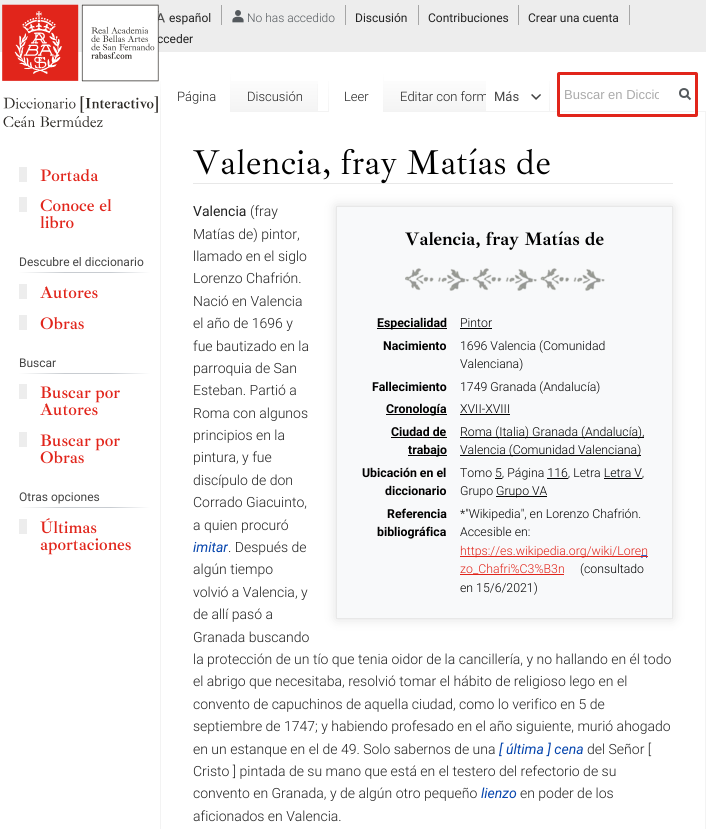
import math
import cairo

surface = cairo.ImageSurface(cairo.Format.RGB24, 706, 829)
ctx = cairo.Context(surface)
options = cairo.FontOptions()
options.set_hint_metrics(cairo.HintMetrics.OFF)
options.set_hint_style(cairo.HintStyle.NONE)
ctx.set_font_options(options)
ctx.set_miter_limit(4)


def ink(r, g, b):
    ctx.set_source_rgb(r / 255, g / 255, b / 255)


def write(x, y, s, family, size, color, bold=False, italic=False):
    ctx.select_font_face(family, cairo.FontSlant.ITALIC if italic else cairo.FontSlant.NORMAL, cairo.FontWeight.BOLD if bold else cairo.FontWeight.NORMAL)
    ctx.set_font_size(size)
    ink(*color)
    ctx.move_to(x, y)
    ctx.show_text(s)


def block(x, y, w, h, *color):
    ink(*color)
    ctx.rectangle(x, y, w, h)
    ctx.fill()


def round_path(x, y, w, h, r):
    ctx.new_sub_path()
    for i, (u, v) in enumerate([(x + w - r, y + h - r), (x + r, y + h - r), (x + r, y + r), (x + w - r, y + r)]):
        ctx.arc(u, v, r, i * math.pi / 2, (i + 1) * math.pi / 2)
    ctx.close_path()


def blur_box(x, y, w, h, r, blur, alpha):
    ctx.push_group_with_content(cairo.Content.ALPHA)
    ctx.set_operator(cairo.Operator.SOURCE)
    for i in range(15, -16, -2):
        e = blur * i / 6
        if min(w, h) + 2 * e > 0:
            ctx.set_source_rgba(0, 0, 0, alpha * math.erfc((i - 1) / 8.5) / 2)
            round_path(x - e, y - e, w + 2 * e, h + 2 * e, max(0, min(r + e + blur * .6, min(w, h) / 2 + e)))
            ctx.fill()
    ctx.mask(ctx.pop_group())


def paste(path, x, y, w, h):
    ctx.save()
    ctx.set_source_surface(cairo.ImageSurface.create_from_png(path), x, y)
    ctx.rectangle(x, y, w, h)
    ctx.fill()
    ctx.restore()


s1 = dict(family="Roboto", size=12, color=(34, 34, 34))
s2 = dict(family="Roboto Light", size=12, color=(84, 89, 93))
s3 = dict(family="Roboto Light", size=13, color=(34, 34, 34))
s4 = dict(family="Roboto", size=13, color=(68, 68, 68))
s5 = dict(family="Liberation Sans", size=13, color=(170, 170, 170))
s6 = dict(family="Ibarra Real Nova SemiBold", size=17, color=(225, 37, 27))
s7 = dict(family="Roboto", size=12, color=(68, 68, 68))
s8 = dict(family="Ibarra Real Nova", size=35.25, color=(0, 0, 0))
s9 = dict(family="Roboto", size=14, color=(34, 34, 34))
s10 = dict(family="Roboto Light", size=14, color=(34, 34, 34))
s11 = dict(family="Roboto", size=14, color=(6, 69, 173), italic=True)
s12 = dict(family="Ibarra Real Nova", size=18.5, color=(0, 0, 0), bold=True)
s13 = dict(family="Roboto", size=12.3, color=(0, 0, 0), bold=True)
s14 = dict(family="Roboto Light", size=12.3, color=(0, 0, 0))
s15 = dict(family="Roboto Light", size=12.3, color=(225, 37, 27))

ink(255, 255, 255)
ctx.paint()
block(0, 0, 706, 52, 237, 237, 237)
block(221, 5, 1, 20, 166, 166, 166)
paste("pic1.png", 158, 11, 7, 12)
write(169, 22, "español", **s1)
paste("pic2.png", 232, 10, 12, 13)
block(345, 5, 1, 20, 166, 166, 166)
write(247, 22, "No has accedido", **s2)
block(418, 5, 1, 20, 166, 166, 166)
write(355, 22, "Discusión", **s1)
block(518, 5, 1, 20, 166, 166, 166)
write(428, 22, "Contribuciones", **s1)
block(629, 5, 1, 20, 166, 166, 166)
write(528, 22, "Crear una cuenta", **s1)
write(157, 43, "cceder", **s1)
ctx.rectangle(160.5, 111.5, 545, 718)
ink(243, 243, 243)
ctx.set_line_width(1)
ctx.stroke()
gradient = cairo.LinearGradient(161, 72, 161, 112)
gradient.add_color_stop_rgba(0, 0.953, 0.953, 0.953, 0)
gradient.add_color_stop_rgba(1, 0.953, 0.953, 0.953, 1)
ctx.set_source(gradient)
ctx.rectangle(160, 81, 1, 31)
ctx.fill()
block(161, 111, 69, 1, 255, 255, 255)
gradient = cairo.LinearGradient(231, 72, 231, 112)
gradient.add_color_stop_rgba(0, 1, 1, 1, 1)
gradient.add_color_stop_rgba(1, 0.953, 0.953, 0.953, 1)
ctx.set_source(gradient)
ctx.rectangle(230, 72, 1, 40)
ctx.fill()
write(177, 101, "Página", **s3)
gradient = cairo.LinearGradient(275, 112, 275, 72)
gradient.add_color_stop_rgba(0, 0.957, 0.957, 0.957, 1)
gradient.add_color_stop_rgba(0.03, 0.957, 0.957, 0.957, 1)
gradient.add_color_stop_rgba(1, 1, 1, 1, 1)
ctx.set_source(gradient)
ctx.rectangle(231, 81, 87, 30)
ctx.fill()
gradient = cairo.LinearGradient(318, 72, 318, 112)
gradient.add_color_stop_rgba(0, 0.953, 0.953, 0.953, 0)
gradient.add_color_stop_rgba(1, 0.953, 0.953, 0.953, 1)
ctx.set_source(gradient)
ctx.rectangle(317, 84, 1, 28)
ctx.fill()
write(247, 101, "Discusión", **s3)
gradient = cairo.LinearGradient(329, 72, 329, 112)
gradient.add_color_stop_rgba(0, 0.953, 0.953, 0.953, 0)
gradient.add_color_stop_rgba(1, 0.953, 0.953, 0.953, 1)
ctx.set_source(gradient)
ctx.rectangle(328, 81, 1, 31)
ctx.fill()
block(329, 111, 54, 1, 255, 255, 255)
gradient = cairo.LinearGradient(384, 72, 384, 112)
gradient.add_color_stop_rgba(0, 1, 1, 1, 1)
gradient.add_color_stop_rgba(1, 0.953, 0.953, 0.953, 1)
ctx.set_source(gradient)
ctx.rectangle(383, 72, 1, 40)
ctx.fill()
write(344, 101, "Leer", **s3)
gradient = cairo.LinearGradient(435, 112, 435, 72)
gradient.add_color_stop_rgba(0, 0.957, 0.957, 0.957, 1)
gradient.add_color_stop_rgba(0.03, 0.957, 0.957, 0.957, 1)
gradient.add_color_stop_rgba(1, 1, 1, 1, 1)
ctx.set_source(gradient)
ctx.rectangle(384, 81, 102, 30)
ctx.fill()
ctx.save()
ctx.rectangle(384, 72, 102, 40)
ctx.clip()
write(400, 101, "Editar con form", **s3)
ctx.restore()
gradient = cairo.LinearGradient(550, 72, 550, 112)
gradient.add_color_stop_rgba(0, 0.953, 0.953, 0.953, 0)
gradient.add_color_stop_rgba(1, 0.953, 0.953, 0.953, 1)
ctx.set_source(gradient)
ctx.rectangle(549, 81, 1, 31)
ctx.fill()
write(494, 101, "Más", **s4)
paste("pic3.png", 531, 94, 10, 6)
ctx.rectangle(560, 75, 135, 39)
ink(255, 255, 255)
ctx.set_line_width(2)
ctx.stroke()
ctx.rectangle(559.5, 74.5, 136, 40)
ink(225, 37, 27)
ctx.set_line_width(1)
ctx.stroke()
round_path(558, 73, 139, 43, 1)
ctx.set_line_width(2)
ctx.stroke()
ctx.save()
ctx.rectangle(564, 87, 95, 15)
ctx.clip()
write(564, 99, "Buscar en Diccio", **s5)
ctx.restore()
ctx.new_path()
ctx.move_to(690.5, 99.5)
ctx.line_to(686.5, 95.5)
ink(84, 89, 93)
ctx.stroke()
ctx.arc(684, 93, 4, 0, 2 * math.pi)
ctx.stroke()
paste("pic4.png", 2, 4, 157, 124)
block(19, 167, 8, 15, 237, 237, 237)
write(40, 181, "Portada", **s6)
block(19, 197, 8, 15, 237, 237, 237)
write(40, 211, "Conoce el", **s6)
write(40, 228, "libro", **s6)
write(19, 266, "Descubre el diccionario", **s7)
gradient = cairo.LinearGradient(19, 273, 150, 273)
gradient.add_color_stop_rgba(0, 1, 1, 1, 1)
gradient.add_color_stop_rgba(0.35, 0.784, 0.8, 0.82, 1)
gradient.add_color_stop_rgba(0.7, 0.784, 0.8, 0.82, 1)
gradient.add_color_stop_rgba(1, 1, 1, 1, 1)
ctx.set_source(gradient)
ctx.rectangle(19, 272, 131, 1)
ctx.fill()
block(19, 284, 8, 15, 237, 237, 237)
write(40, 298, "Autores", **s6)
block(19, 315, 8, 15, 237, 237, 237)
write(40, 329, "Obras", **s6)
write(19, 367, "Buscar", **s7)
gradient = cairo.LinearGradient(19, 374, 150, 374)
gradient.add_color_stop_rgba(0, 1, 1, 1, 1)
gradient.add_color_stop_rgba(0.35, 0.784, 0.8, 0.82, 1)
gradient.add_color_stop_rgba(0.7, 0.784, 0.8, 0.82, 1)
gradient.add_color_stop_rgba(1, 1, 1, 1, 1)
ctx.set_source(gradient)
ctx.rectangle(19, 373, 131, 1)
ctx.fill()
block(19, 384, 8, 15, 237, 237, 237)
write(40, 398, "Buscar por", **s6)
write(40, 415, "Autores", **s6)
block(19, 432, 8, 15, 237, 237, 237)
write(40, 446, "Buscar por", **s6)
write(40, 463, "Obras", **s6)
write(19, 501, "Otras opciones", **s7)
gradient = cairo.LinearGradient(19, 508, 150, 508)
gradient.add_color_stop_rgba(0, 1, 1, 1, 1)
gradient.add_color_stop_rgba(0.35, 0.784, 0.8, 0.82, 1)
gradient.add_color_stop_rgba(0.7, 0.784, 0.8, 0.82, 1)
gradient.add_color_stop_rgba(1, 1, 1, 1, 1)
ctx.set_source(gradient)
ctx.rectangle(19, 507, 131, 1)
ctx.fill()
block(19, 519, 8, 15, 237, 237, 237)
write(40, 533, "Últimas", **s6)
write(40, 550, "aportaciones", **s6)
block(193, 183, 480, 1, 232, 232, 232)
write(193, 174, "Valencia, fray Matías de", **s8)
write(193, 216, "Valencia", **s9)
write(250, 216, "(fray", **s10)
write(193, 239, "Matías de) pintor,", **s10)
write(193, 261, "llamado en el siglo", **s10)
write(193, 283, "Lorenzo Chafrión.", **s10)
write(193, 306, "Nació en Valencia", **s10)
write(193, 328, "el año de 1696 y", **s10)
write(193, 351, "fue bautizado en la", **s10)
write(193, 373, "parroquia de San", **s10)
write(193, 395, "Esteban. Partió a", **s10)
write(193, 418, "Roma con algunos", **s10)
write(193, 440, "principios en la", **s10)
write(193, 462, "pintura, y fue", **s10)
write(193, 485, "discípulo de don", **s10)
write(193, 507, "Corrado Giacuinto,", **s10)
write(193, 530, "a quien procuró", **s10)
write(193, 552, "imitar", **s11)
write(228, 552, ". Después de", **s10)
write(193, 574, "algún tiempo", **s10)
write(193, 597, "volvió a Valencia, y", **s10)
write(193, 619, "de allí pasó a", **s10)
write(193, 642, "Granada buscando", **s10)
write(193, 664, "la protección de un tío que tenia oidor de la cancillería, y no hallando en él todo", **s10)
write(193, 686, "el abrigo que necesitaba, resolvió tomar el hábito de religioso lego en el", **s10)
write(193, 709, "convento de capuchinos de aquella ciudad, como lo verifico en 5 de", **s10)
write(193, 731, "septiembre de 1747; y habiendo profesado en el año siguiente, murió ahogado", **s10)
write(193, 754, "en un estanque en el de 49. Solo sabernos de una", **s10)
write(499, 754, "[ última ] cena", **s11)
write(587, 754, "del Señor [", **s10)
write(193, 776, "Cristo ] pintada de su mano que está en el testero del refectorio de su", **s10)
write(193, 798, "convento en Granada, y de algún otro pequeño", **s10)
write(481, 798, "lienzo", **s11)
write(520, 798, "en poder de los", **s10)
write(193, 821, "aficionados en Valencia.", **s10)
ink(0, 0, 0)
blur_box(336, 206, 337, 413, 0, 6.5, 0.12)
ink(248, 249, 250)
ctx.rectangle(336.5, 206.5, 336, 412)
ctx.fill_preserve()
ink(232, 232, 232)
ctx.set_line_width(1)
ctx.stroke()
write(405, 245, "Valencia, fray Matías de", **s12)
paste("pic5.png", 405, 268, 200, 23)
block(377, 328, 70, 1, 0, 0, 0)
write(377, 327, "Especialidad", **s13)
write(460, 327, "Pintor", **s14)
block(460, 328, 32, 1, 0, 0, 0)
write(383, 350, "Nacimiento", **s13)
write(460, 350, "1696 Valencia (Comunidad", **s14)
write(460, 368, "Valenciana)", **s14)
write(372, 391, "Fallecimiento", **s13)
write(460, 391, "1749 Granada (Andalucía)", **s14)
block(386, 414, 61, 1, 0, 0, 0)
write(386, 413, "Cronología", **s13)
write(460, 413, "XVII-XVIII", **s14)
block(460, 414, 50, 1, 0, 0, 0)
write(391, 436, "Ciudad de", **s13)
block(391, 437, 56, 1, 0, 0, 0)
block(408, 455, 39, 1, 0, 0, 0)
write(408, 454, "trabajo", **s13)
block(460, 437, 184, 1, 0, 0, 0)
write(460, 436, "Roma (Italia) Granada (Andalucía),", **s14)
block(460, 455, 181, 1, 0, 0, 0)
write(460, 454, "Valencia (Comunidad Valenciana)", **s14)
write(362, 477, "Ubicación en el", **s13)
write(385, 495, "diccionario", **s13)
write(460, 477, "Tomo 5, Página 116, Letra Letra V,", **s14)
block(495, 478, 7, 1, 0, 0, 0)
block(547, 478, 21, 1, 0, 0, 0)
block(604, 478, 38, 1, 0, 0, 0)
write(460, 495, "Grupo", **s14)
block(496, 496, 51, 1, 0, 0, 0)
write(496, 495, "Grupo VA", **s14)
write(387, 518, "Referencia", **s13)
write(377, 536, "bibliográfica", **s13)
write(460, 518, "*\"Wikipedia\", en Lorenzo Chafrión.", **s14)
write(460, 536, "Accesible en:", **s14)
paste("pic6.png", 640, 555, 7, 3)
block(460, 556, 188, 1, 225, 37, 27)
write(460, 555, "https://es.wikipedia.org/wiki/Loren", **s15)
write(460, 573, "zo_Chafri%C3%B3n", **s15)
block(460, 574, 104, 1, 225, 37, 27)
write(580, 573, "(consultado", **s14)
write(460, 592, "en 15/6/2021)", **s14)
surface.write_to_png("screenshot.png")
